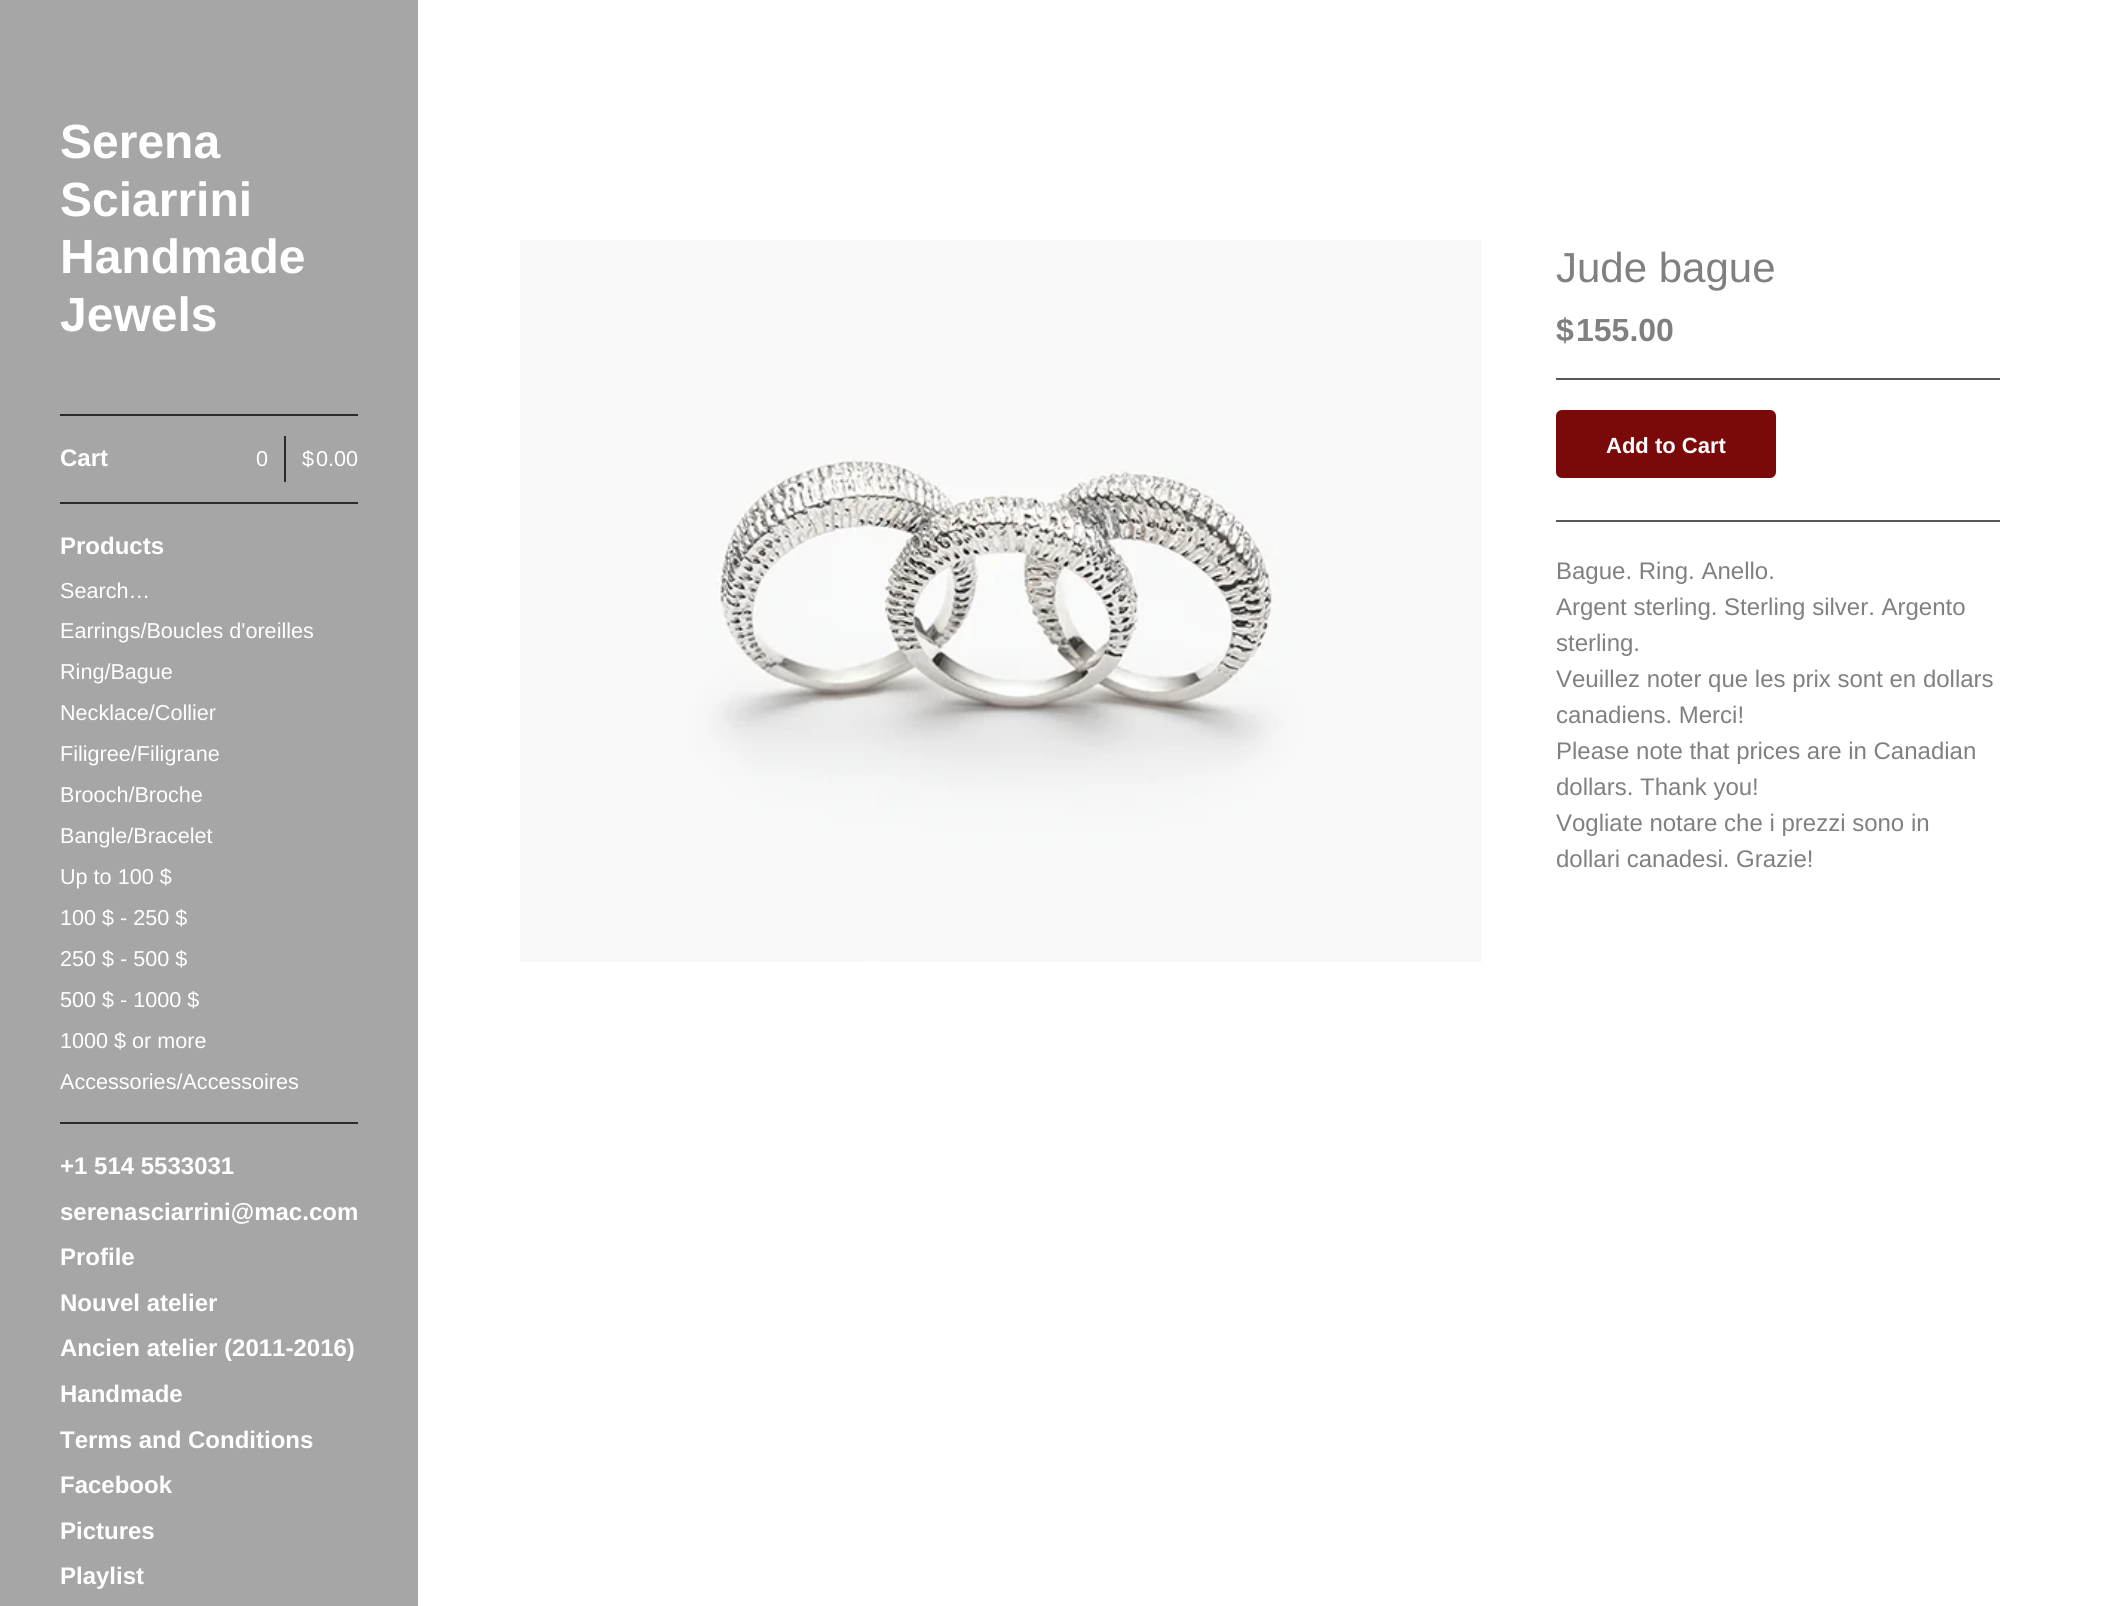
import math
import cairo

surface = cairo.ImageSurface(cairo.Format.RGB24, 2120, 1606)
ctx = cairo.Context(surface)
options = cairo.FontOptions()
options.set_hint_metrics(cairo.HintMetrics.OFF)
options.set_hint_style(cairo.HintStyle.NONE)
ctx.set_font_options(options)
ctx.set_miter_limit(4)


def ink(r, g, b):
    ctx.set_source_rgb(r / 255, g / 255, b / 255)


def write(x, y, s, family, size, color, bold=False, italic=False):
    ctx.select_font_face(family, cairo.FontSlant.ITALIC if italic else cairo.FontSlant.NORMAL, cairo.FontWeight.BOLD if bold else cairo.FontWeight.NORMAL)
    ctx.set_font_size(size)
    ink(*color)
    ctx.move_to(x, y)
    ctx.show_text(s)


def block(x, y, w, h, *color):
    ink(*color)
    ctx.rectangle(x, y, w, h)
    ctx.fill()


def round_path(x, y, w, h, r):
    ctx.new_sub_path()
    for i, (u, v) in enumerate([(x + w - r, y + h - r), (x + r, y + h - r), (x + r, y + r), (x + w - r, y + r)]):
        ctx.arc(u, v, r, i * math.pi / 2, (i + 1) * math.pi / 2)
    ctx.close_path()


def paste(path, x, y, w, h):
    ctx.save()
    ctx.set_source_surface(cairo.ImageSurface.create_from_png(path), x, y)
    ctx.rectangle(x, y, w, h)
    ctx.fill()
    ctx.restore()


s1 = dict(family="Liberation Sans", size=48, color=(255, 255, 255), bold=True)
s2 = dict(family="Liberation Sans", size=24, color=(255, 255, 255), bold=True)
s3 = dict(family="Liberation Sans", size=21.6, color=(255, 255, 255))
s4 = dict(family="Liberation Sans", size=42, color=(128, 128, 128))
s5 = dict(family="Liberation Sans", size=32, color=(128, 128, 128), bold=True)
s6 = dict(family="Liberation Sans", size=22, color=(255, 255, 255), bold=True)
s7 = dict(family="Liberation Sans", size=24, color=(128, 128, 128))

ink(255, 255, 255)
ctx.paint()
block(0, 0, 418, 1606, 166, 166, 166)
write(60, 158, "Serena", **s1)
write(60, 216, "Sciarrini", **s1)
write(60, 273, "Handmade", **s1)
write(60, 331, "Jewels", **s1)
block(60, 414, 298, 2, 43, 43, 43)
write(60, 466, "Cart", **s2)
write(256, 466, "0", **s3)
block(284, 436, 2, 46, 43, 43, 43)
write(302, 466, "$", **s3)
write(316, 466, "0.00", **s3)
block(60, 502, 298, 2, 43, 43, 43)
write(60, 554, "Products", **s2)
write(60, 598, "Search…", **s3)
write(60, 638, "Earrings/Boucles d'oreilles", **s3)
write(60, 679, "Ring/Bague", **s3)
write(60, 720, "Necklace/Collier", **s3)
write(60, 761, "Filigree/Filigrane", **s3)
write(60, 802, "Brooch/Broche", **s3)
write(60, 843, "Bangle/Bracelet", **s3)
write(60, 884, "Up to 100 $", **s3)
write(60, 925, "100 $ - 250 $", **s3)
write(60, 966, "250 $ - 500 $", **s3)
write(60, 1007, "500 $ - 1000 $", **s3)
write(60, 1048, "1000 $ or more", **s3)
write(60, 1089, "Accessories/Accessoires", **s3)
block(60, 1122, 298, 2, 43, 43, 43)
write(60, 1174, "+1 514 5533031", **s2)
write(60, 1220, "serenasciarrini@mac.com", **s2)
write(60, 1265, "Profile", **s2)
write(60, 1311, "Nouvel atelier", **s2)
write(60, 1356, "Ancien atelier (2011-2016)", **s2)
write(60, 1402, "Handmade", **s2)
write(60, 1448, "Terms and Conditions", **s2)
write(60, 1493, "Facebook", **s2)
write(60, 1539, "Pictures", **s2)
write(60, 1584, "Playlist", **s2)
paste("pic1.png", 520, 240, 962, 722)
write(1556, 282, "Jude bague", **s4)
write(1556, 341, "$", **s5)
write(1576, 341, "155.00", **s5)
block(1556, 378, 444, 2, 87, 87, 87)
ink(122, 9, 9)
round_path(1556, 410, 220, 68, 6)
ctx.fill()
write(1606, 453, "Add to Cart", **s6)
block(1556, 520, 444, 2, 87, 87, 87)
write(1556, 579, "Bague. Ring. Anello.", **s7)
write(1556, 615, "Argent sterling. Sterling silver. Argento", **s7)
write(1556, 651, "sterling.", **s7)
write(1556, 687, "Veuillez noter que les prix sont en dollars", **s7)
write(1556, 723, "canadiens. Merci!", **s7)
write(1556, 759, "Please note that prices are in Canadian", **s7)
write(1556, 795, "dollars. Thank you!", **s7)
write(1556, 831, "Vogliate notare che i prezzi sono in", **s7)
write(1556, 867, "dollari canadesi. Grazie!", **s7)
surface.write_to_png("screenshot.png")
